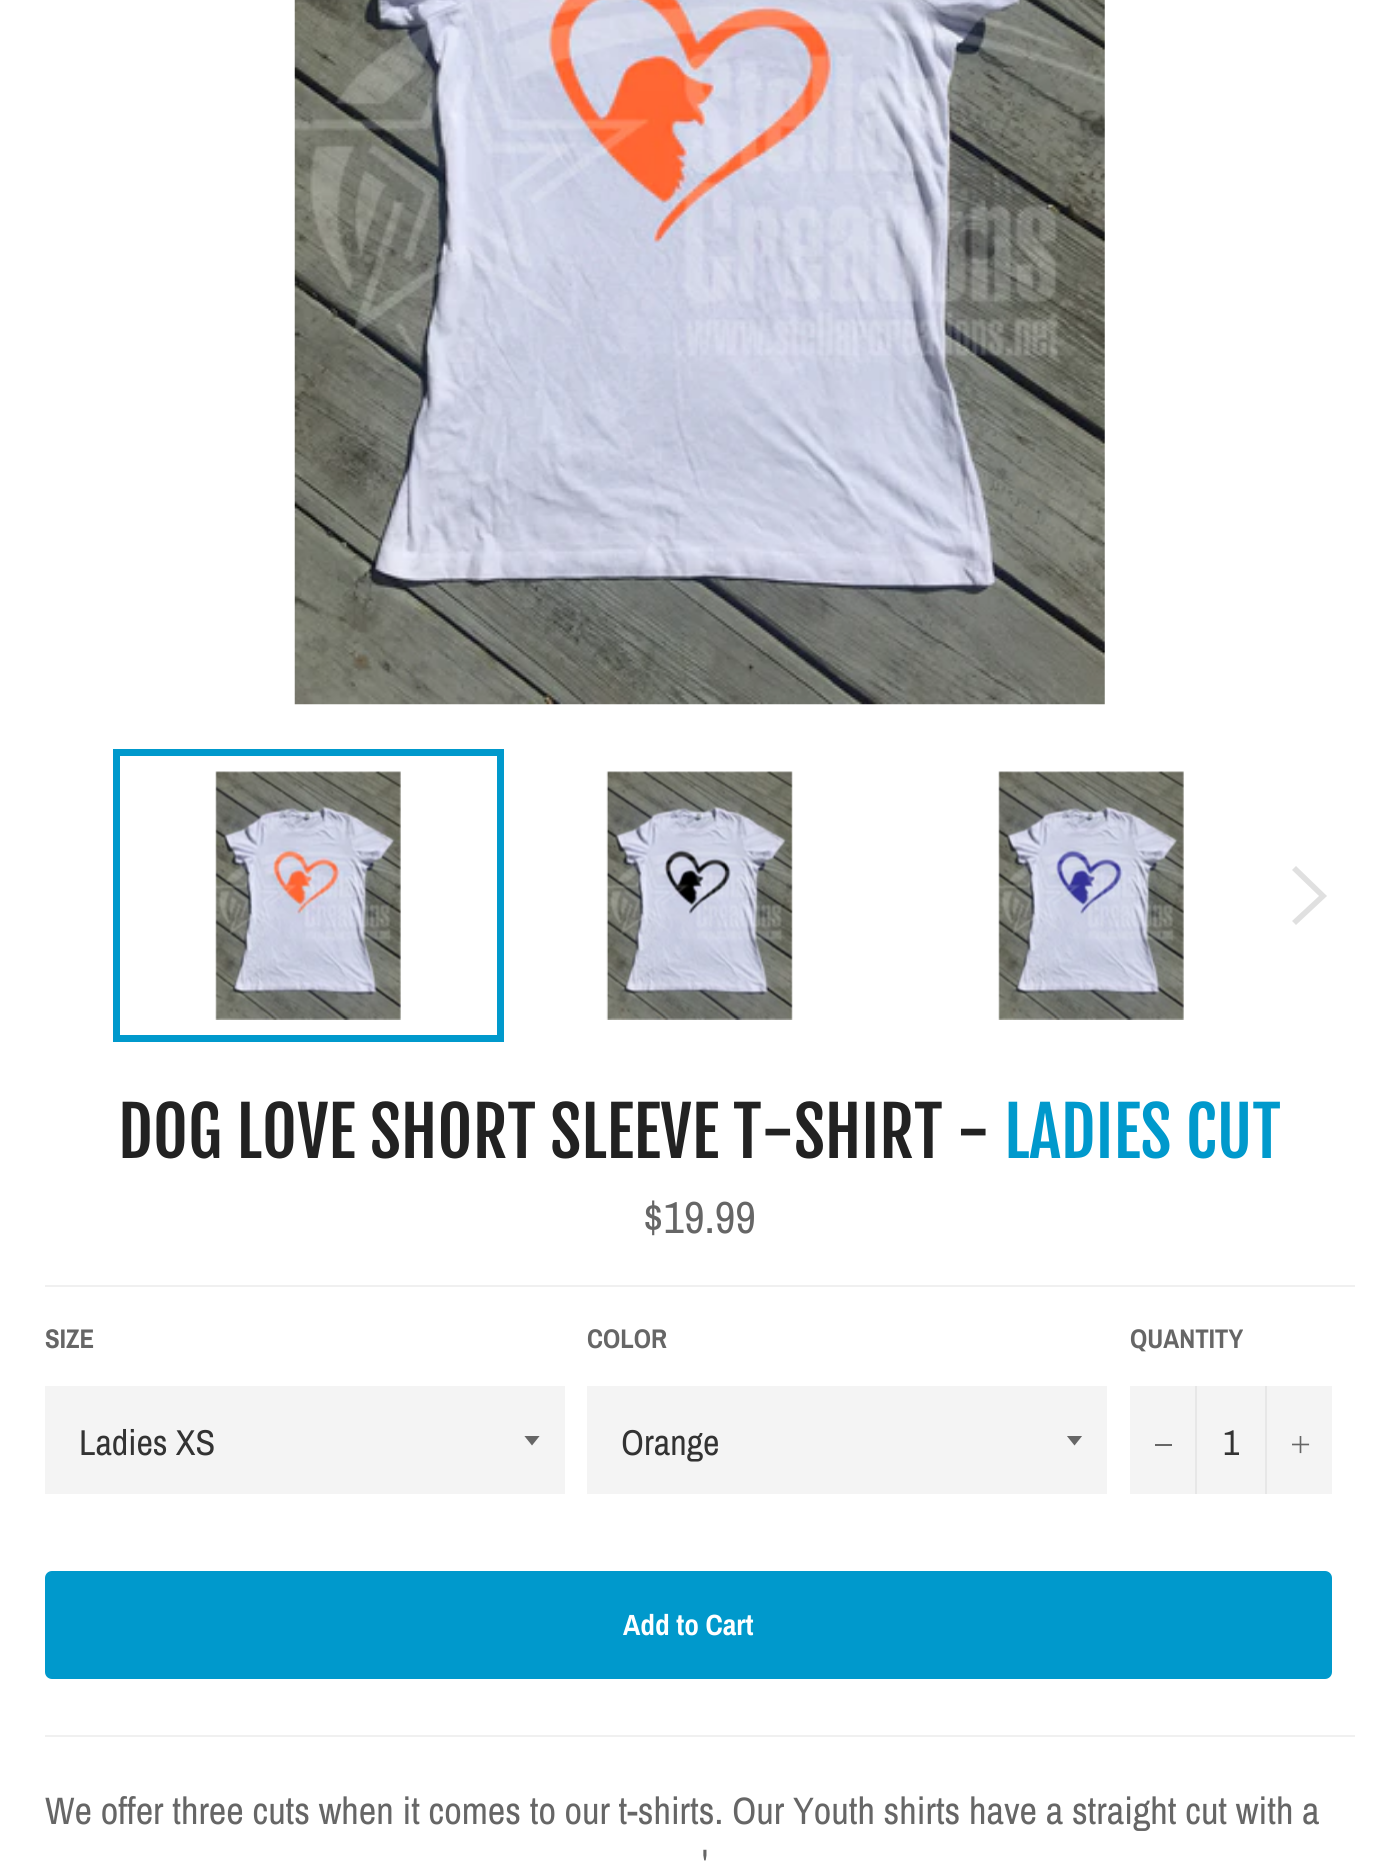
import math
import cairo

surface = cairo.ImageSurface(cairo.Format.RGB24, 1398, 1864)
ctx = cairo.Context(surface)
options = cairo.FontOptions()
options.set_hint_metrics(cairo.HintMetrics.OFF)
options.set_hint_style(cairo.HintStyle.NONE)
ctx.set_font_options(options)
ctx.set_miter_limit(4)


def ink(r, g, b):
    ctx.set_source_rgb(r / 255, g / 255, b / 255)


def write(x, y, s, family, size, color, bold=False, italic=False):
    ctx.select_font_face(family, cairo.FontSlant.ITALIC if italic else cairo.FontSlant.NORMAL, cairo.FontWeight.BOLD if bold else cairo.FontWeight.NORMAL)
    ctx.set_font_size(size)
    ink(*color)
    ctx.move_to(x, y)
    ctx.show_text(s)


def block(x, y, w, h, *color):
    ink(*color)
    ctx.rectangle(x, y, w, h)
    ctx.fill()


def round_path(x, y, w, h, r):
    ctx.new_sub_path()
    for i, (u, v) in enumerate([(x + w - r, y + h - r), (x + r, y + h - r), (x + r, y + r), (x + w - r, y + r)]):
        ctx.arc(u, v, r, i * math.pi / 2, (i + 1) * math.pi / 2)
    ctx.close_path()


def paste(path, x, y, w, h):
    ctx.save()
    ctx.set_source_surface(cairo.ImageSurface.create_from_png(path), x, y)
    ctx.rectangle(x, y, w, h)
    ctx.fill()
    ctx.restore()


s1 = dict(family="Fjalla One", size=67.5, color=(34, 34, 34))
s2 = dict(family="Fjalla One", size=67.5, color=(0, 153, 204))
s3 = dict(family="Archivo Narrow", size=45, color=(102, 102, 102))
s4 = dict(family="Archivo Narrow", size=27, color=(102, 102, 102), bold=True)
s5 = dict(family="Archivo Narrow", size=36, color=(51, 51, 51))
s6 = dict(family="Archivo Narrow", size=29.25, color=(255, 255, 255), bold=True)
s7 = dict(family="Archivo Narrow", size=38.25, color=(102, 102, 102))

ink(255, 255, 255)
ctx.paint()
paste("pic1.png", 294, 0, 811, 705)
paste("pic2.png", 215, 771, 186, 249)
ctx.rectangle(116.5, 752.5, 384, 286)
ink(0, 153, 204)
ctx.set_line_width(7)
ctx.stroke()
paste("pic3.png", 606, 771, 187, 249)
paste("pic4.png", 998, 771, 186, 249)
ink(224, 224, 224)
ctx.new_path()
ctx.move_to(1292, 870)
ctx.line_to(1296, 866)
ctx.line_to(1327, 896)
ctx.line_to(1296, 925)
ctx.line_to(1292, 921)
ctx.line_to(1319, 896)
ctx.close_path()
ctx.fill()
write(118, 1158, "DOG LOVE SHORT SLEEVE T-SHIRT -", **s1)
write(1004, 1158, "LADIES CUT", **s2)
write(643, 1233, "$19.99", **s3)
block(45, 1285, 1310, 2, 240, 240, 240)
write(45, 1348, "SIZE", **s4)
block(45, 1386, 520, 108, 244, 244, 244)
ctx.save()
ctx.rectangle(524, 1436, 18, 11)
ctx.clip()
ink(102, 102, 102)
ctx.new_path()
ctx.move_to(524, 1435.5)
ctx.line_to(532, 1445.5)
ctx.line_to(540, 1435.5)
ctx.close_path()
ctx.fill()
ctx.restore()
write(79, 1455, "Ladies XS", **s5)
write(587, 1348, "COLOR", **s4)
block(587, 1386, 520, 108, 244, 244, 244)
ctx.save()
ctx.rectangle(1067, 1436, 18, 11)
ctx.clip()
ink(102, 102, 102)
ctx.new_path()
ctx.move_to(1066.5, 1435.5)
ctx.line_to(1074.5, 1445.5)
ctx.line_to(1082.5, 1435.5)
ctx.close_path()
ctx.fill()
ctx.restore()
write(621, 1455, "Orange", **s5)
write(1130, 1348, "QUANTITY", **s4)
block(1130, 1386, 202, 108, 244, 244, 244)
block(1195, 1386, 2, 108, 231, 231, 231)
block(1155, 1444, 17, 2, 102, 102, 102)
write(1223, 1455, "1", **s5)
block(1265, 1386, 2, 108, 231, 231, 231)
paste("pic5.png", 1292, 1436, 18, 18)
ink(0, 153, 204)
round_path(45, 1571, 1287, 108, 7)
ctx.fill()
write(623, 1635, "Add to Cart", **s6)
block(45, 1735, 1310, 2, 240, 240, 240)
write(45, 1824, "We offer three cuts when it comes to our t-shirts. Our Youth shirts have a straight cut with a", **s7)
write(702, 1876, "'", **s7)
surface.write_to_png("screenshot.png")
